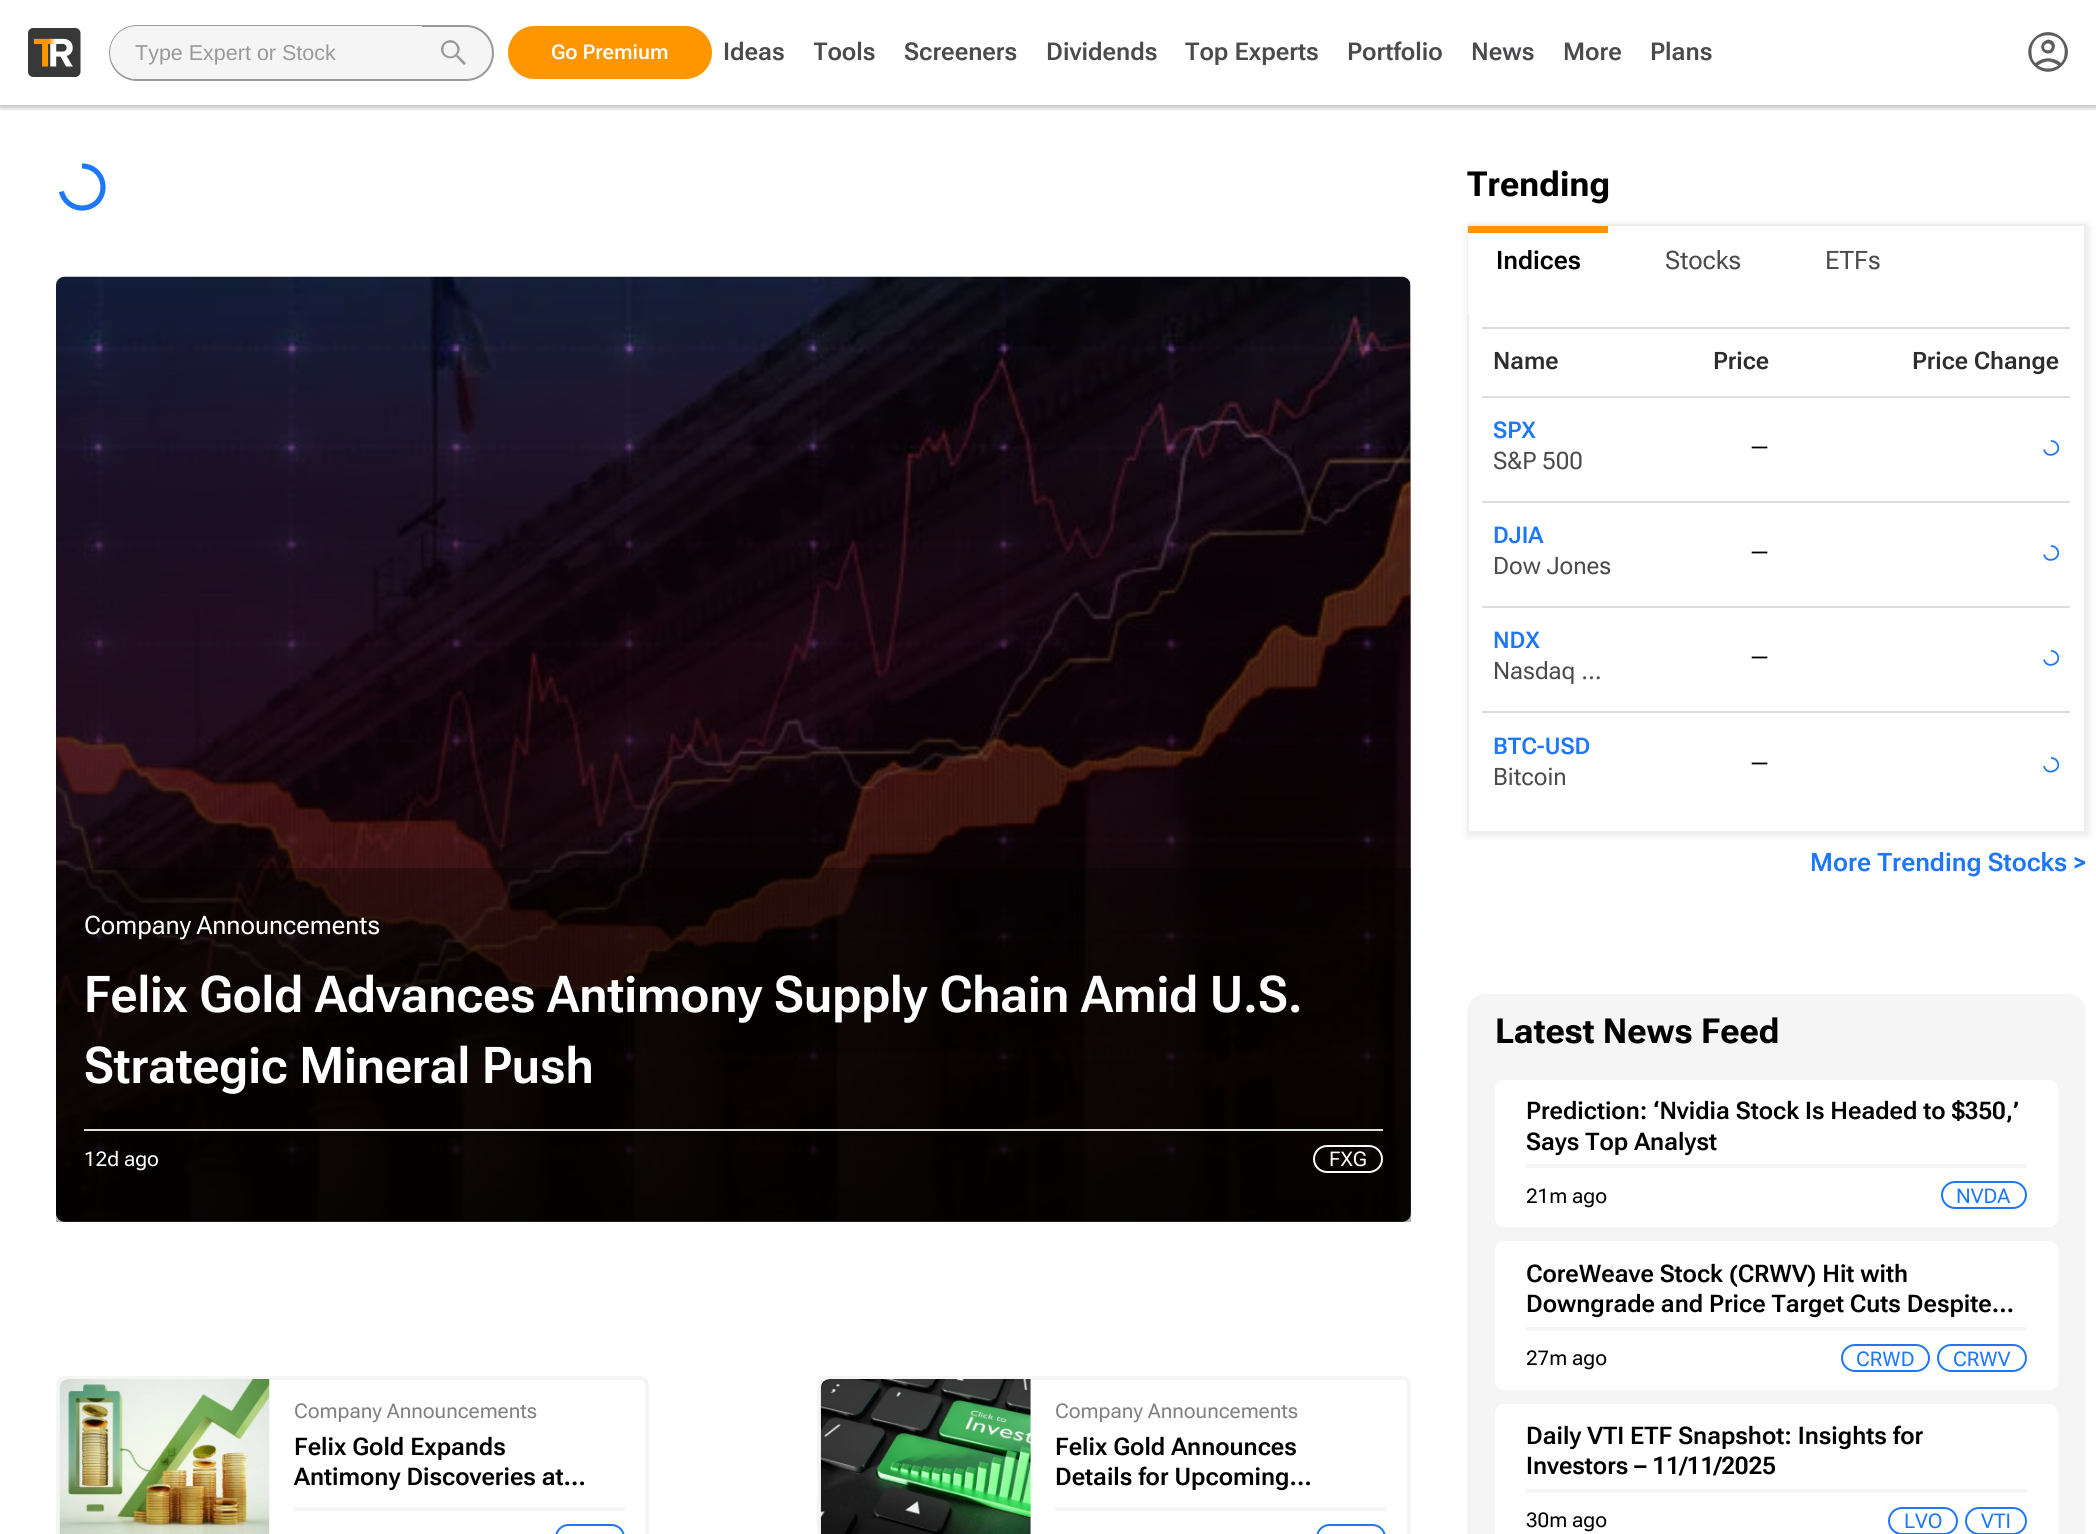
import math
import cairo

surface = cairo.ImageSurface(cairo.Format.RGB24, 2096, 1534)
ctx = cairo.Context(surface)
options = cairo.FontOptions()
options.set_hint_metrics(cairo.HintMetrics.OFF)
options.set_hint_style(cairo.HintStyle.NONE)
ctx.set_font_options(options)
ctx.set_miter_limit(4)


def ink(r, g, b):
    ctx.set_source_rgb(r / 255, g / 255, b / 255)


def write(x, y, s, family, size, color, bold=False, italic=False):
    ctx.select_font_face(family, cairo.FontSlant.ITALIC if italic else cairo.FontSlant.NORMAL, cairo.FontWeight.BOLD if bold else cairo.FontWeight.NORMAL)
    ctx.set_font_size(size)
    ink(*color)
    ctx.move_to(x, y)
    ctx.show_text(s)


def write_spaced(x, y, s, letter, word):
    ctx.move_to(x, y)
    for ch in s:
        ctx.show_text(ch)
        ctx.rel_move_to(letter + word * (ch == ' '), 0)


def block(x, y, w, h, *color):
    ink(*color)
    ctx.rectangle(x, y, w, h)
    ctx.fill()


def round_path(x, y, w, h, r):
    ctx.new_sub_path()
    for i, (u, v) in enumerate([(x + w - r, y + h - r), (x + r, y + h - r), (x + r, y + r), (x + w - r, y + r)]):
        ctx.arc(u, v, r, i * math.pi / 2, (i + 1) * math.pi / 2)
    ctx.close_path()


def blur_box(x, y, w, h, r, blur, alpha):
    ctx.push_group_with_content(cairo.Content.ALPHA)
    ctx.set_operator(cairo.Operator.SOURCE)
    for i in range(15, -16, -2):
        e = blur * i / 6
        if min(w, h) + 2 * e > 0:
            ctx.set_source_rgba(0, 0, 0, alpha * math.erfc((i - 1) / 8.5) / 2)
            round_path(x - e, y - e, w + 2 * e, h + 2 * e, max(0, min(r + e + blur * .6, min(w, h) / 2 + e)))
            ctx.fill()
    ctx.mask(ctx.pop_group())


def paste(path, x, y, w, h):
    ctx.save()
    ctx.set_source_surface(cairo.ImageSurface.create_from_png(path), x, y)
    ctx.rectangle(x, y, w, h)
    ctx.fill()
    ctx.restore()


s1 = dict(family="Liberation Sans", size=21.5, color=(153, 153, 153))
s2 = dict(family="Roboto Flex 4 SemiBold", size=20.25, color=(255, 255, 255))
s3 = dict(family="Roboto Flex SemiBold", size=24.5, color=(75, 74, 76))
s4 = dict(family="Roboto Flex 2 SemiBold", size=50.75, color=(255, 255, 255))
s5 = dict(family="Roboto Flex", size=20.25, color=(255, 255, 255))
s6 = dict(family="Roboto Flex", size=20.25, color=(130, 128, 128))
s7 = dict(family="Roboto Flex SemiBold", size=24.25, color=(0, 0, 0))
s8 = dict(family="Roboto Flex", size=34.5, color=(0, 0, 0), bold=True)
s9 = dict(family="Roboto Flex SemiBold", size=25.4, color=(0, 0, 0))
s10 = dict(family="Roboto Flex 2", size=25.4, color=(75, 74, 76))
s11 = dict(family="Roboto Flex SemiBold", size=24, color=(45, 45, 45))
s12 = dict(family="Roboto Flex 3 SemiBold", size=23, color=(30, 119, 249))
s13 = dict(family="Roboto Flex 2", size=24, color=(75, 74, 76))
s14 = dict(family="Roboto", size=24, color=(0, 0, 0))
s15 = dict(family="Roboto Flex SemiBold", size=23, color=(30, 119, 249))
s16 = dict(family="Roboto Flex SemiBold", size=25.4, color=(30, 119, 249))
s17 = dict(family="Roboto Flex", size=20.25, color=(0, 0, 0))
s18 = dict(family="Roboto Flex", size=20.25, color=(30, 119, 249))

ink(255, 255, 255)
ctx.paint()
ctx.save()
ctx.rectangle(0, 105, 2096, 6)
ctx.clip()
ink(0, 0, 0)
blur_box(-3, -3, 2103, 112, 0, 2, 0.1)
ctx.restore()
ctx.save()
ctx.rectangle(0, 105, 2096, 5)
ctx.clip()
ink(0, 0, 0)
blur_box(0, 0, 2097, 105, 0, 3.5, 0.3)
ctx.restore()
paste("pic1.png", 28, 28, 53, 49)
ink(245, 245, 245)
round_path(110, 26, 383, 54, 27)
ctx.fill_preserve()
ink(153, 153, 153)
ctx.stroke()
ink(245, 245, 245)
ctx.new_path()
ctx.move_to(136.5, 26)
ctx.line_to(422, 26)
ctx.line_to(422, 79)
ctx.line_to(136.5, 79)
ctx.curve_to(122, 79, 110, 67, 110, 52.5)
ctx.curve_to(110, 38, 122, 26, 136.5, 26)
ctx.close_path()
ctx.fill()
write(135, 60, "Type Expert or Stock", **s1)
paste("pic2.png", 441, 40, 25, 25)
ink(255, 150, 0)
round_path(508, 26, 204, 53, 26.5)
ctx.fill()
write(551, 59, "Go Premium", **s2)
write(723, 60, "Ideas", **s3)
ctx.save()
ctx.rectangle(814, 35, 63, 35)
ctx.clip()
write(813, 60, "Tools", **s3)
ctx.restore()
write(904, 60, "Screeners", **s3)
write(1046, 60, "Dividends", **s3)
write(1185, 60, "Top Experts", **s3)
write(1347, 60, "Portfolio", **s3)
write(1471, 60, "News", **s3)
write(1563, 60, "More", **s3)
write(1650, 60, "Plans", **s3)
paste("pic3.png", 2028, 32, 40, 40)
ctx.new_path()
ctx.move_to(82, 166)
ctx.curve_to(94, 166, 103, 175.5, 103, 187)
ctx.curve_to(103, 199, 94, 208, 82, 208)
ctx.curve_to(72, 208, 63.5, 201, 61.5, 191.5)
ink(30, 119, 249)
ctx.set_line_width(5.2)
ctx.stroke()
paste("pic4.png", 56, 276, 1355, 946)
gradient = cairo.LinearGradient(733, 276, 733, 1222)
gradient.add_color_stop_rgba(0, 0, 0, 0, 0)
gradient.add_color_stop_rgba(0.25, 0, 0, 0, 0.5)
gradient.add_color_stop_rgba(0.5, 0, 0, 0, 0.6)
gradient.add_color_stop_rgba(0.75, 0, 0, 0, 0.7)
gradient.add_color_stop_rgba(1, 0, 0, 0, 0.8)
ctx.set_source(gradient)
round_path(56, 277, 1355, 945, 9)
ctx.fill()
ctx.set_source_rgba(0, 0, 0, 0.3)
ctx.rectangle(56, 868, 1355, 354)
ctx.fill()
ctx.select_font_face("Roboto Flex 2")
ctx.set_font_size(25.4)
ink(255, 255, 255)
write_spaced(84, 934, "Company Announcements", 0, -1)
write(84, 1012, "Felix Gold Advances Antimony Supply Chain Amid U.S.", **s4)
write(84, 1083, "Strategic Mineral Push", **s4)
block(84, 1129, 1299, 2, 221, 221, 221)
write(84, 1166, "12d ago", **s5)
round_path(1314, 1146, 68, 26, 13)
ctx.set_line_width(2)
ctx.stroke()
write(1329, 1166, "FXG", **s5)
round_path(58, 1378, 589, 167, 7)
ink(245, 245, 245)
ctx.set_line_width(4)
ctx.stroke()
paste("pic5.png", 59, 1379, 211, 155)
block(294, 1507, 331, 4, 245, 245, 245)
write(294, 1418, "Company Announcements", **s6)
write(294, 1455, "Felix Gold Expands", **s7)
write(294, 1485, "Antimony Discoveries at…", **s7)
round_path(556, 1525, 68, 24, 12.5)
ink(30, 119, 249)
ctx.set_line_width(2)
ctx.stroke()
round_path(819, 1378, 590, 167, 7)
ink(245, 245, 245)
ctx.set_line_width(4)
ctx.stroke()
paste("pic6.png", 820, 1379, 211, 155)
block(1055, 1507, 331, 4, 245, 245, 245)
write(1055, 1418, "Company Announcements", **s6)
write(1055, 1455, "Felix Gold Announces", **s7)
write(1055, 1485, "Details for Upcoming…", **s7)
round_path(1317, 1525, 68, 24, 12.5)
ink(30, 119, 249)
ctx.set_line_width(2)
ctx.stroke()
write(1467, 196, "Trending", **s8)
ctx.save()
ctx.set_fill_rule(cairo.FillRule.EVEN_ODD)
ctx.new_path()
ctx.move_to(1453, 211)
ctx.line_to(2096, 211)
ctx.line_to(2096, 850)
ctx.line_to(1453, 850)
ctx.close_path()
ctx.move_to(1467, 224)
ctx.line_to(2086, 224)
ctx.line_to(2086, 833)
ctx.line_to(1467, 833)
ctx.close_path()
ctx.clip()
ink(0, 0, 0)
blur_box(1468, 226, 620, 609, 0, 4.5, 0.1)
ctx.restore()
ctx.rectangle(1468, 225, 617, 607)
ink(238, 238, 238)
ctx.stroke()
block(1468, 226, 1, 87, 255, 255, 255)
block(1468, 226, 140, 7, 255, 150, 0)
write(1496, 269, "Indices", **s9)
write(1665, 269, "Stocks", **s10)
write(1825, 269, "ETFs", **s10)
block(1482, 327, 588, 2, 221, 221, 221)
block(1482, 396, 588, 2, 221, 221, 221)
write(1493, 369, "Name", **s11)
write(1713, 369, "Price", **s11)
write(1912, 369, "Price Change", **s11)
block(1482, 501, 588, 2, 221, 221, 221)
write(1493, 438, "SPX", **s12)
write(1493, 469, "S&P 500", **s13)
write(1750, 456, "―", **s14)
ctx.new_path()
ctx.move_to(2051, 441)
ctx.curve_to(2053.5, 441, 2055.5, 442, 2057, 444)
ctx.curve_to(2063, 453.5, 2046.5, 460, 2044, 449.5)
ink(30, 119, 249)
ctx.set_line_width(1.8)
ctx.stroke()
block(1482, 606, 588, 2, 221, 221, 221)
write(1493, 543, "DJIA", **s15)
write(1493, 574, "Dow Jones", **s13)
write(1750, 561, "―", **s14)
ctx.new_path()
ctx.move_to(2051, 546)
ctx.curve_to(2053.5, 546, 2055.5, 547, 2057, 549)
ctx.curve_to(2063, 558.5, 2046.5, 565, 2044, 554.5)
ink(30, 119, 249)
ctx.stroke()
block(1482, 711, 588, 2, 221, 221, 221)
write(1493, 648, "NDX", **s15)
write(1493, 679, "Nasdaq …", **s13)
write(1750, 666, "―", **s14)
ctx.new_path()
ctx.move_to(2051, 651)
ctx.curve_to(2053.5, 651, 2055.5, 652, 2057, 654)
ctx.curve_to(2063, 663.5, 2046.5, 670, 2044, 659.5)
ink(30, 119, 249)
ctx.stroke()
write(1493, 754, "BTC-USD", **s15)
write(1493, 785, "Bitcoin", **s13)
write(1750, 772, "―", **s14)
ctx.new_path()
ctx.move_to(2051, 758)
ctx.curve_to(2053.5, 758, 2055.5, 759, 2057, 761)
ctx.curve_to(2063, 770, 2046.5, 777, 2044, 766)
ink(30, 119, 249)
ctx.stroke()
write(1810, 871, "More Trending Stocks >", **s16)
ink(245, 245, 245)
round_path(1467, 994, 619, 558, 18)
ctx.fill()
write(1495, 1043, "Latest News Feed", **s8)
ink(255, 255, 255)
round_path(1495, 1080, 563, 147, 9)
ctx.fill()
write(1526, 1119, "Prediction: ‘Nvidia Stock Is Headed to $350,’", **s7)
write(1526, 1150, "Says Top Analyst", **s7)
block(1526, 1164, 501, 4, 245, 245, 245)
write(1526, 1203, "21m ago", **s17)
round_path(1942, 1182, 84, 26, 13)
ink(30, 119, 249)
ctx.set_line_width(2)
ctx.stroke()
write(1956, 1203, "NVDA", **s18)
ink(255, 255, 255)
round_path(1495, 1241, 563, 149, 9)
ctx.fill()
write(1526, 1282, "CoreWeave Stock (CRWV) Hit with", **s7)
write(1526, 1312, "Downgrade and Price Target Cuts Despite…", **s7)
block(1526, 1327, 501, 4, 245, 245, 245)
write(1526, 1365, "27m ago", **s17)
round_path(1842, 1345, 87, 26, 13)
ink(30, 119, 249)
ctx.stroke()
write(1856, 1366, "CRWD", **s18)
round_path(1938, 1345, 88, 26, 13)
ctx.stroke()
write(1953, 1366, "CRWV", **s18)
ink(255, 255, 255)
round_path(1495, 1404, 563, 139, 9)
ctx.fill()
write(1526, 1444, "Daily VTI ETF Snapshot: Insights for", **s7)
write(1526, 1474, "Investors – 11/11/2025", **s7)
block(1526, 1489, 501, 4, 245, 245, 245)
write(1526, 1527, "30m ago", **s17)
round_path(1889, 1508, 68, 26, 13)
ink(30, 119, 249)
ctx.stroke()
write(1904, 1528, "LVO", **s18)
round_path(1966, 1508, 60, 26, 13)
ctx.stroke()
write(1981, 1528, "VTI", **s18)
surface.write_to_png("screenshot.png")
